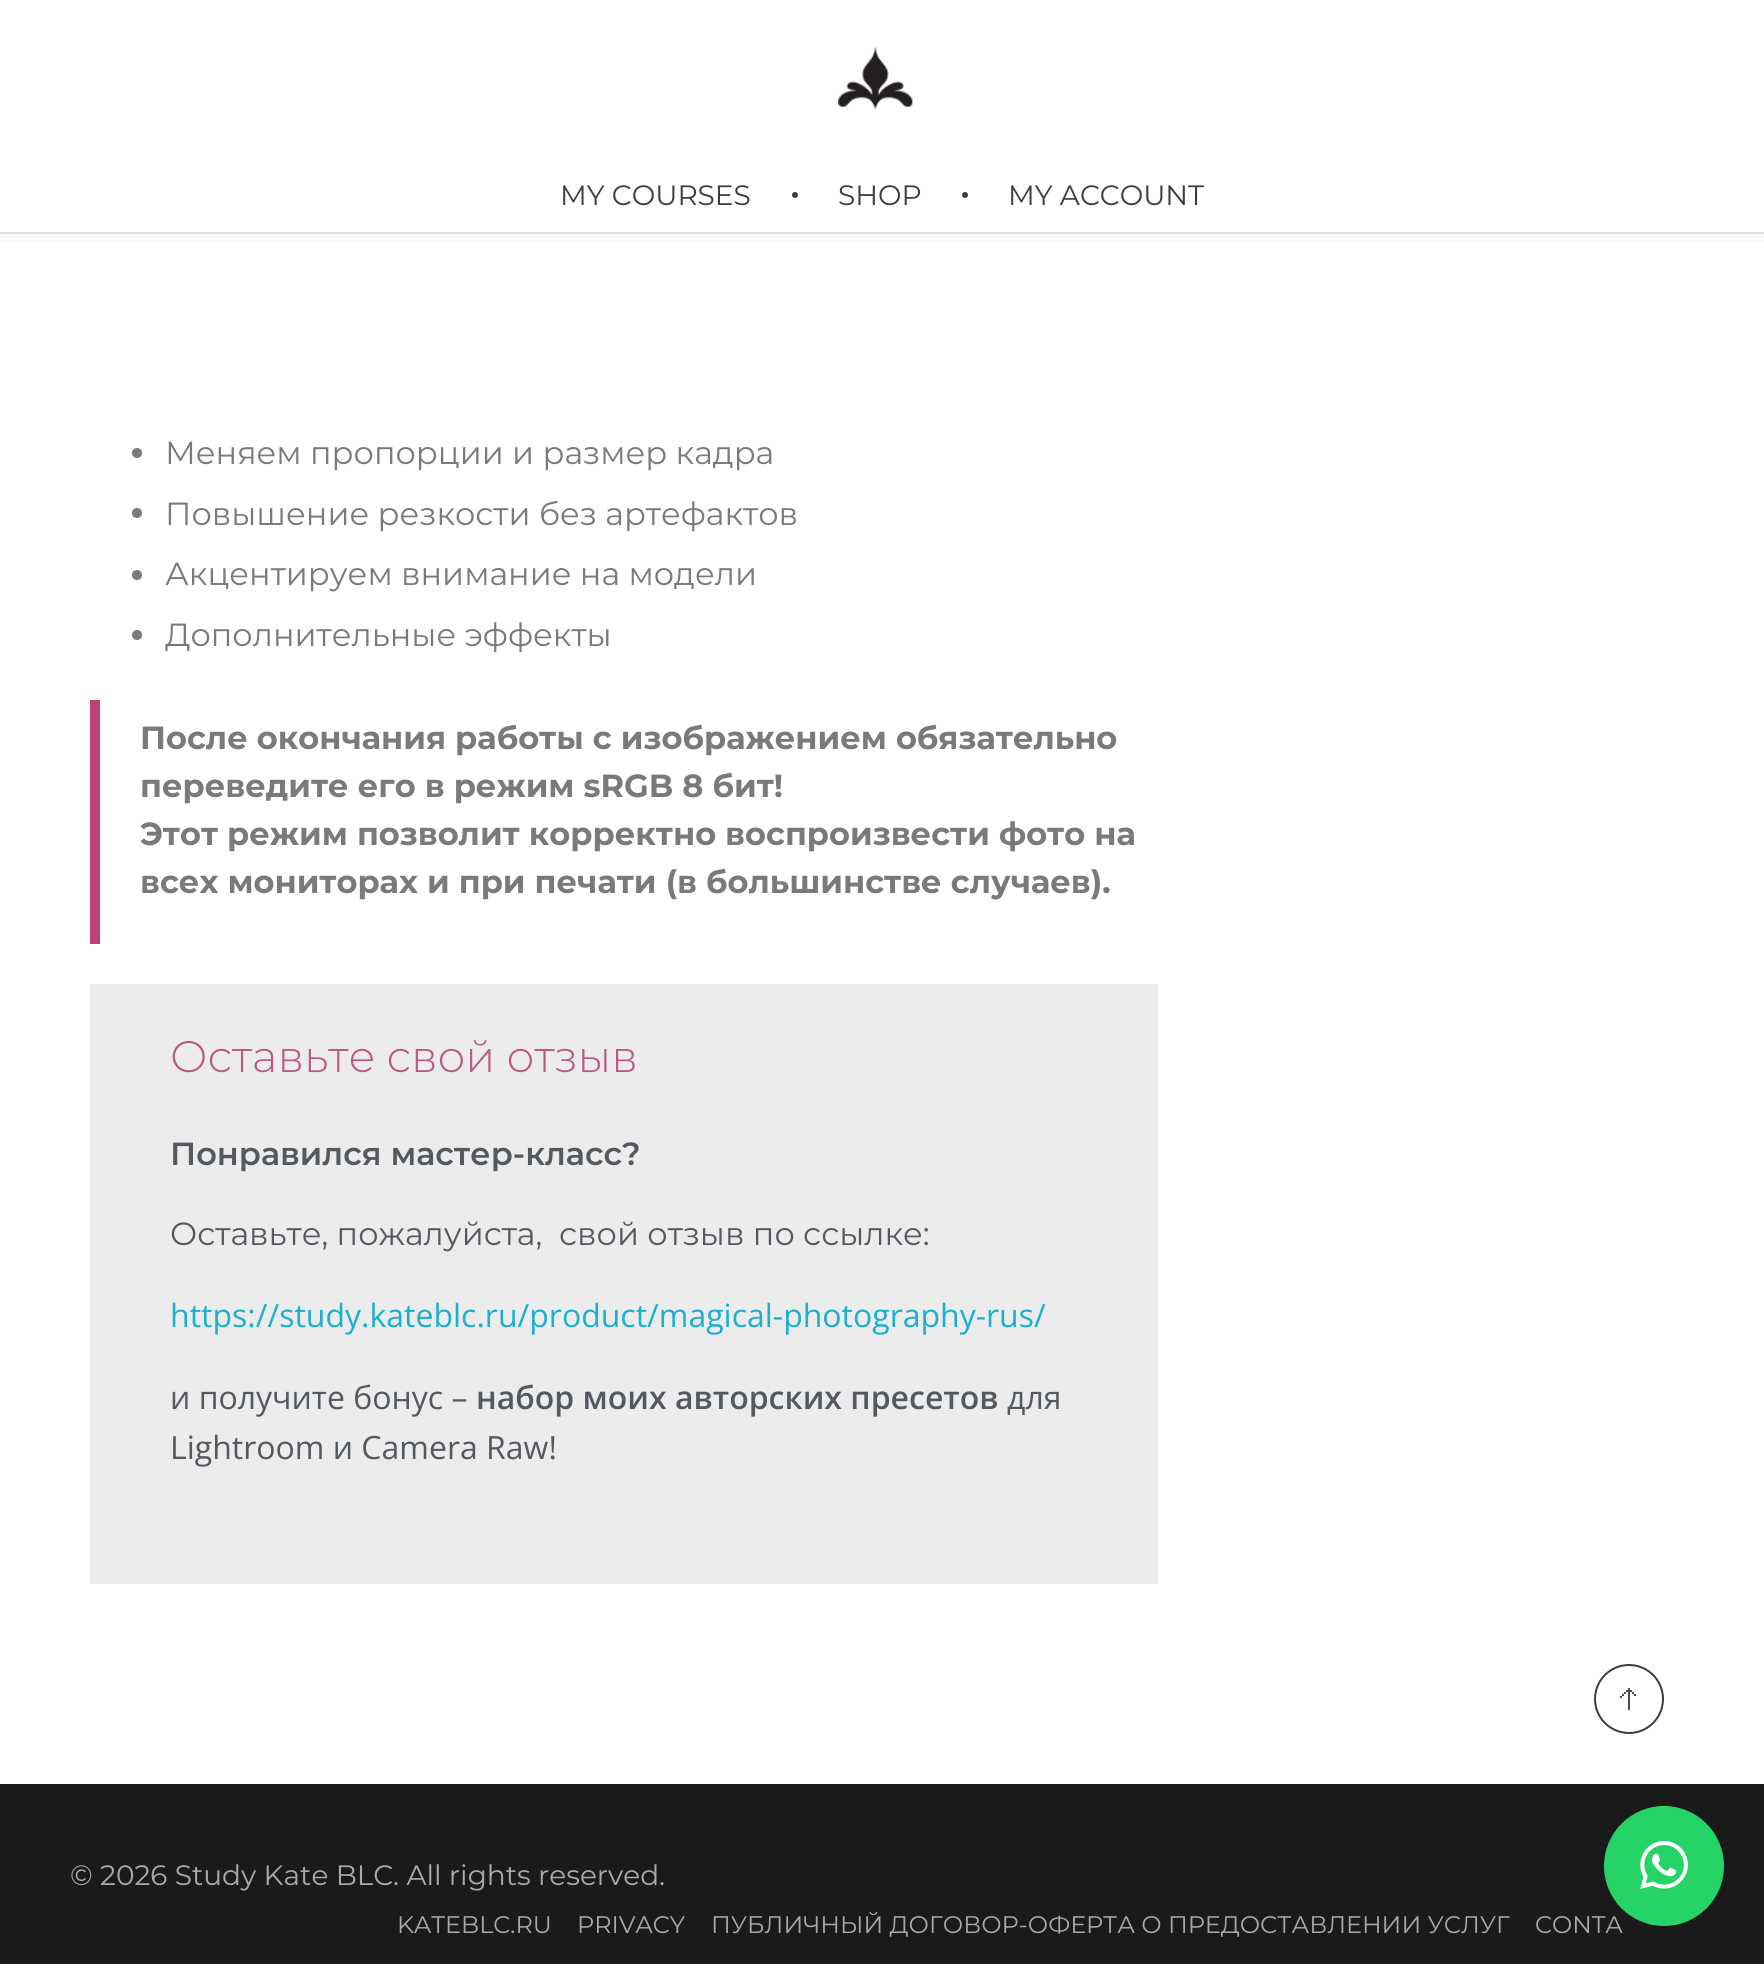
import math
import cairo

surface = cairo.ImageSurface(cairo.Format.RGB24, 1764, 1974)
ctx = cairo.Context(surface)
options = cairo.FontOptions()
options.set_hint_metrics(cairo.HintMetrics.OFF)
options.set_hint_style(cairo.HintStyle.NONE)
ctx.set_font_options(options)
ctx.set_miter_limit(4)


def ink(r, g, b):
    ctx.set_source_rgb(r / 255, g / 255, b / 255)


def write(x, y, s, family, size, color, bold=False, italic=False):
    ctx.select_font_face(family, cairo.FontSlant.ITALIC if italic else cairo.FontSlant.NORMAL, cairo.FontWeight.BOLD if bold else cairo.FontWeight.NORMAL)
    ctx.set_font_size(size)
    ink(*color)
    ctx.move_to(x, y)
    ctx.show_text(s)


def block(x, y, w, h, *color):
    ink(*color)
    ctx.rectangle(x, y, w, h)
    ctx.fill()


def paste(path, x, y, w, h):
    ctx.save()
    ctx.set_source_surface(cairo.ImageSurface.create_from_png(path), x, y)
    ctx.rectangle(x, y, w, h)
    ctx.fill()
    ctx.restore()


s1 = dict(family="Montserrat", size=28, color=(61, 61, 61))
s2 = dict(family="Montserrat", size=32, color=(122, 122, 122))
s3 = dict(family="Montserrat", size=32, color=(122, 122, 122), bold=True)
s4 = dict(family="Montserrat Light", size=44, color=(185, 90, 132))
s5 = dict(family="Montserrat SemiBold", size=32, color=(84, 89, 95))
s6 = dict(family="Montserrat", size=32, color=(84, 89, 95))
s7 = dict(family="Open Sans", size=32, color=(27, 176, 206))
s8 = dict(family="Open Sans", size=32, color=(84, 89, 95))
s9 = dict(family="Open Sans SemiBold", size=32, color=(84, 89, 95))
s10 = dict(family="Montserrat", size=28, color=(170, 170, 170))
s11 = dict(family="Montserrat", size=24, color=(170, 170, 170))

ink(255, 255, 255)
ctx.paint()
block(0, 234, 1764, 8, 248, 248, 248)
block(0, 232, 1764, 2, 222, 222, 222)
paste("pic1.png", 838, 47, 75, 63)
write(560, 205, "MY COURSES", **s1)
ctx.new_path()
ctx.arc(795, 195, 3, 0, 2 * math.pi)
ctx.fill()
write(838, 205, "SHOP", **s1)
ctx.new_path()
ctx.arc(965, 195, 3, 0, 2 * math.pi)
ctx.fill()
write(1008, 205, "MY ACCOUNT", **s1)
ink(122, 122, 122)
ctx.new_path()
ctx.arc(137, 453, 5, 0, 2 * math.pi)
ctx.fill()
write(165, 464, "Меняем пропорции и размер кадра", **s2)
ctx.new_path()
ctx.arc(137, 513, 5, 0, 2 * math.pi)
ctx.fill()
write(165, 525, "Повышение резкости без артефактов", **s2)
ctx.new_path()
ctx.arc(137, 575, 5, 0, 2 * math.pi)
ctx.fill()
write(165, 585, "Акцентируем внимание на модели", **s2)
ctx.new_path()
ctx.arc(137, 635, 5, 0, 2 * math.pi)
ctx.fill()
write(165, 646, "Дополнительные эффекты", **s2)
block(90, 700, 10, 244, 191, 66, 121)
write(140, 749, "После окончания работы с изображением обязательно", **s3)
write(140, 797, "переведите его в режим sRGB 8 бит!", **s3)
write(140, 845, "Этот режим позволит корректно воспроизвести фото на", **s3)
write(140, 893, "всех мониторах и при печати (в большинстве случаев).", **s3)
block(90, 984, 1068, 600, 236, 236, 236)
write(170, 1072, "Оставьте свой отзыв", **s4)
write(170, 1165, "Понравился мастер-класс?", **s5)
write(170, 1245, "Оставьте, пожалуйста,  свой отзыв по ссылке:", **s6)
write(170, 1327, "https://study.kateblc.ru/product/magical-photography-rus/", **s7)
write(170, 1409, "и получите бонус –", **s8)
write(476, 1409, "набор моих авторских пресетов", **s9)
write(1007, 1409, "для", **s8)
write(170, 1459, "Lightroom и Camera Raw!", **s8)
block(0, 1784, 1764, 180, 26, 26, 26)
write(70, 1885, "© 2026 Study Kate BLC. All rights reserved.", **s10)
write(397, 1933, "KATEBLC.RU", **s11)
write(577, 1933, "PRIVACY", **s11)
write(711, 1933, "ПУБЛИЧНЫЙ ДОГОВОР-ОФЕРТА О ПРЕДОСТАВЛЕНИИ УСЛУГ", **s11)
write(1535, 1933, "CONTA", **s11)
ctx.new_path()
ctx.arc(1629, 1699, 34, 0, 2 * math.pi)
ink(61, 61, 61)
ctx.stroke()
paste("pic2.png", 1620, 1688, 16, 22)
ink(37, 211, 102)
ctx.arc(1664, 1866, 60, 0, 2 * math.pi)
ctx.fill()
paste("pic3.png", 1640, 1841, 48, 48)
surface.write_to_png("screenshot.png")
